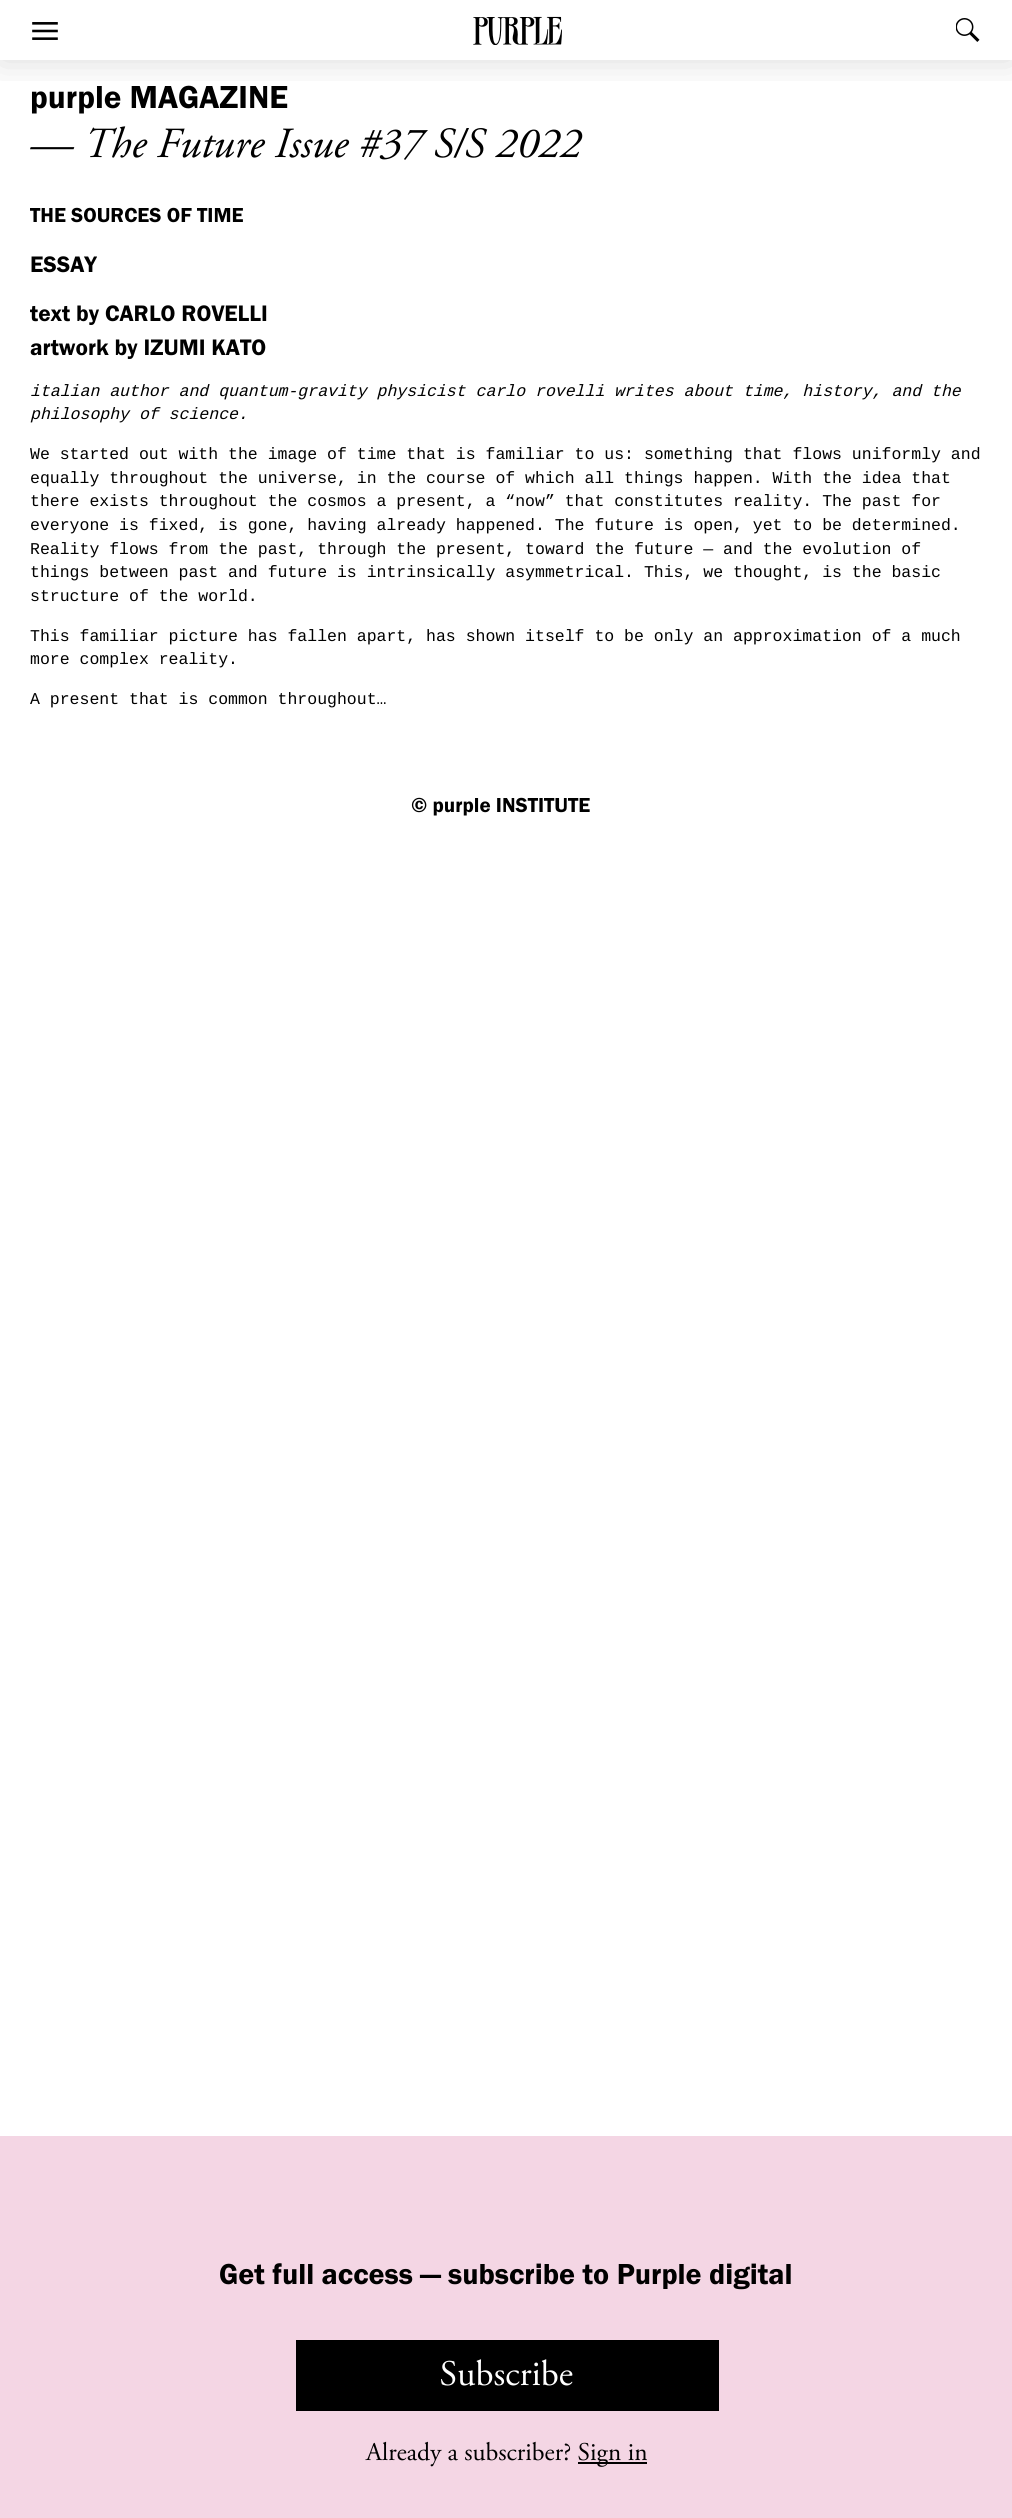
import math
import cairo

surface = cairo.ImageSurface(cairo.Format.RGB24, 1012, 2518)
ctx = cairo.Context(surface)
options = cairo.FontOptions()
options.set_hint_metrics(cairo.HintMetrics.OFF)
options.set_hint_style(cairo.HintStyle.NONE)
ctx.set_font_options(options)
ctx.set_miter_limit(4)


def ink(r, g, b):
    ctx.set_source_rgb(r / 255, g / 255, b / 255)


def write(x, y, s, family, size, color, bold=False, italic=False):
    ctx.select_font_face(family, cairo.FontSlant.ITALIC if italic else cairo.FontSlant.NORMAL, cairo.FontWeight.BOLD if bold else cairo.FontWeight.NORMAL)
    ctx.set_font_size(size)
    ink(*color)
    ctx.move_to(x, y)
    ctx.show_text(s)


def block(x, y, w, h, *color):
    ink(*color)
    ctx.rectangle(x, y, w, h)
    ctx.fill()


def round_path(x, y, w, h, r):
    ctx.new_sub_path()
    for i, (u, v) in enumerate([(x + w - r, y + h - r), (x + r, y + h - r), (x + r, y + r), (x + w - r, y + r)]):
        ctx.arc(u, v, r, i * math.pi / 2, (i + 1) * math.pi / 2)
    ctx.close_path()


def blur_box(x, y, w, h, r, blur, alpha):
    ctx.push_group_with_content(cairo.Content.ALPHA)
    ctx.set_operator(cairo.Operator.SOURCE)
    for i in range(15, -16, -2):
        e = blur * i / 6
        if min(w, h) + 2 * e > 0:
            ctx.set_source_rgba(0, 0, 0, alpha * math.erfc((i - 1) / 8.5) / 2)
            round_path(x - e, y - e, w + 2 * e, h + 2 * e, max(0, min(r + e + blur * .6, min(w, h) / 2 + e)))
            ctx.fill()
    ctx.mask(ctx.pop_group())


def paste(path, x, y, w, h):
    ctx.save()
    ctx.set_source_surface(cairo.ImageSurface.create_from_png(path), x, y)
    ctx.rectangle(x, y, w, h)
    ctx.fill()
    ctx.restore()


s1 = dict(family="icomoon", size=21, color=(0, 0, 0))
s2 = dict(family="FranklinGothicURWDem", size=33, color=(0, 0, 0))
s3 = dict(family="Adobe Garamond", size=42.9, color=(0, 0, 0), italic=True)
s4 = dict(family="FranklinGothicURWDem", size=21, color=(0, 0, 0))
s5 = dict(family="FranklinGothicURWDem", size=23.25, color=(0, 0, 0))
s6 = dict(family="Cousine", size=16.5, color=(0, 0, 0), italic=True)
s7 = dict(family="Cousine", size=16.5, color=(0, 0, 0))
s8 = dict(family="FranklinGothicURWDem", size=30, color=(0, 0, 0))

ink(255, 255, 255)
ctx.paint()
ctx.save()
ctx.rectangle(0, 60, 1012, 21)
ctx.clip()
ink(0, 0, 0)
blur_box(0, 0, 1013, 60, 0, 19, 0.15)
ctx.restore()
write(30, 40, "9", **s1)
paste("pic1.png", 956, 18, 24, 24)
paste("pic2.png", 473, 16, 89, 29)
write(30, 108, "purple MAGAZINE", **s2)
write(30, 157, "— The Future Issue #37 S/S 2022", **s3)
write(30, 222, "THE SOURCES OF TIME", **s4)
write(30, 272, "ESSAY", **s5)
write(30, 321, "text by CARLO ROVELLI", **s5)
write(30, 355, "artwork by IZUMI KATO", **s5)
write(30, 396, "italian author and quantum-gravity physicist carlo rovelli writes about time, history, and the", **s6)
write(30, 419, "philosophy of science.", **s6)
write(30, 459, "We started out with the image of time that is familiar to us: something that flows uniformly and", **s7)
write(30, 483, "equally throughout the universe, in the course of which all things happen. With the idea that", **s7)
write(30, 506, "there exists throughout the cosmos a present, a “now” that constitutes reality. The past for", **s7)
write(30, 530, "everyone is fixed, is gone, having already happened. The future is open, yet to be determined.", **s7)
write(30, 554, "Reality flows from the past, through the present, toward the future — and the evolution of", **s7)
write(30, 577, "things between past and future is intrinsically asymmetrical. This, we thought, is the basic", **s7)
write(30, 601, "structure of the world.", **s7)
write(30, 641, "This familiar picture has fallen apart, has shown itself to be only an approximation of a much", **s7)
write(30, 664, "more complex reality.", **s7)
write(30, 704, "A present that is common throughout…", **s7)
write(411, 812, "© purple INSTITUTE", **s4)
block(0, 2136, 1012, 382, 244, 214, 228)
write(219, 2284, "Get full access — subscribe to Purple digital", **s8)
block(296, 2340, 423, 71, 0, 0, 0)
paste("pic3.png", 441, 2359, 132, 27)
paste("pic4.png", 365, 2441, 206, 26)
block(578, 2462, 69, 2, 0, 0, 0)
paste("pic5.png", 578, 2442, 69, 25)
surface.write_to_png("screenshot.png")
